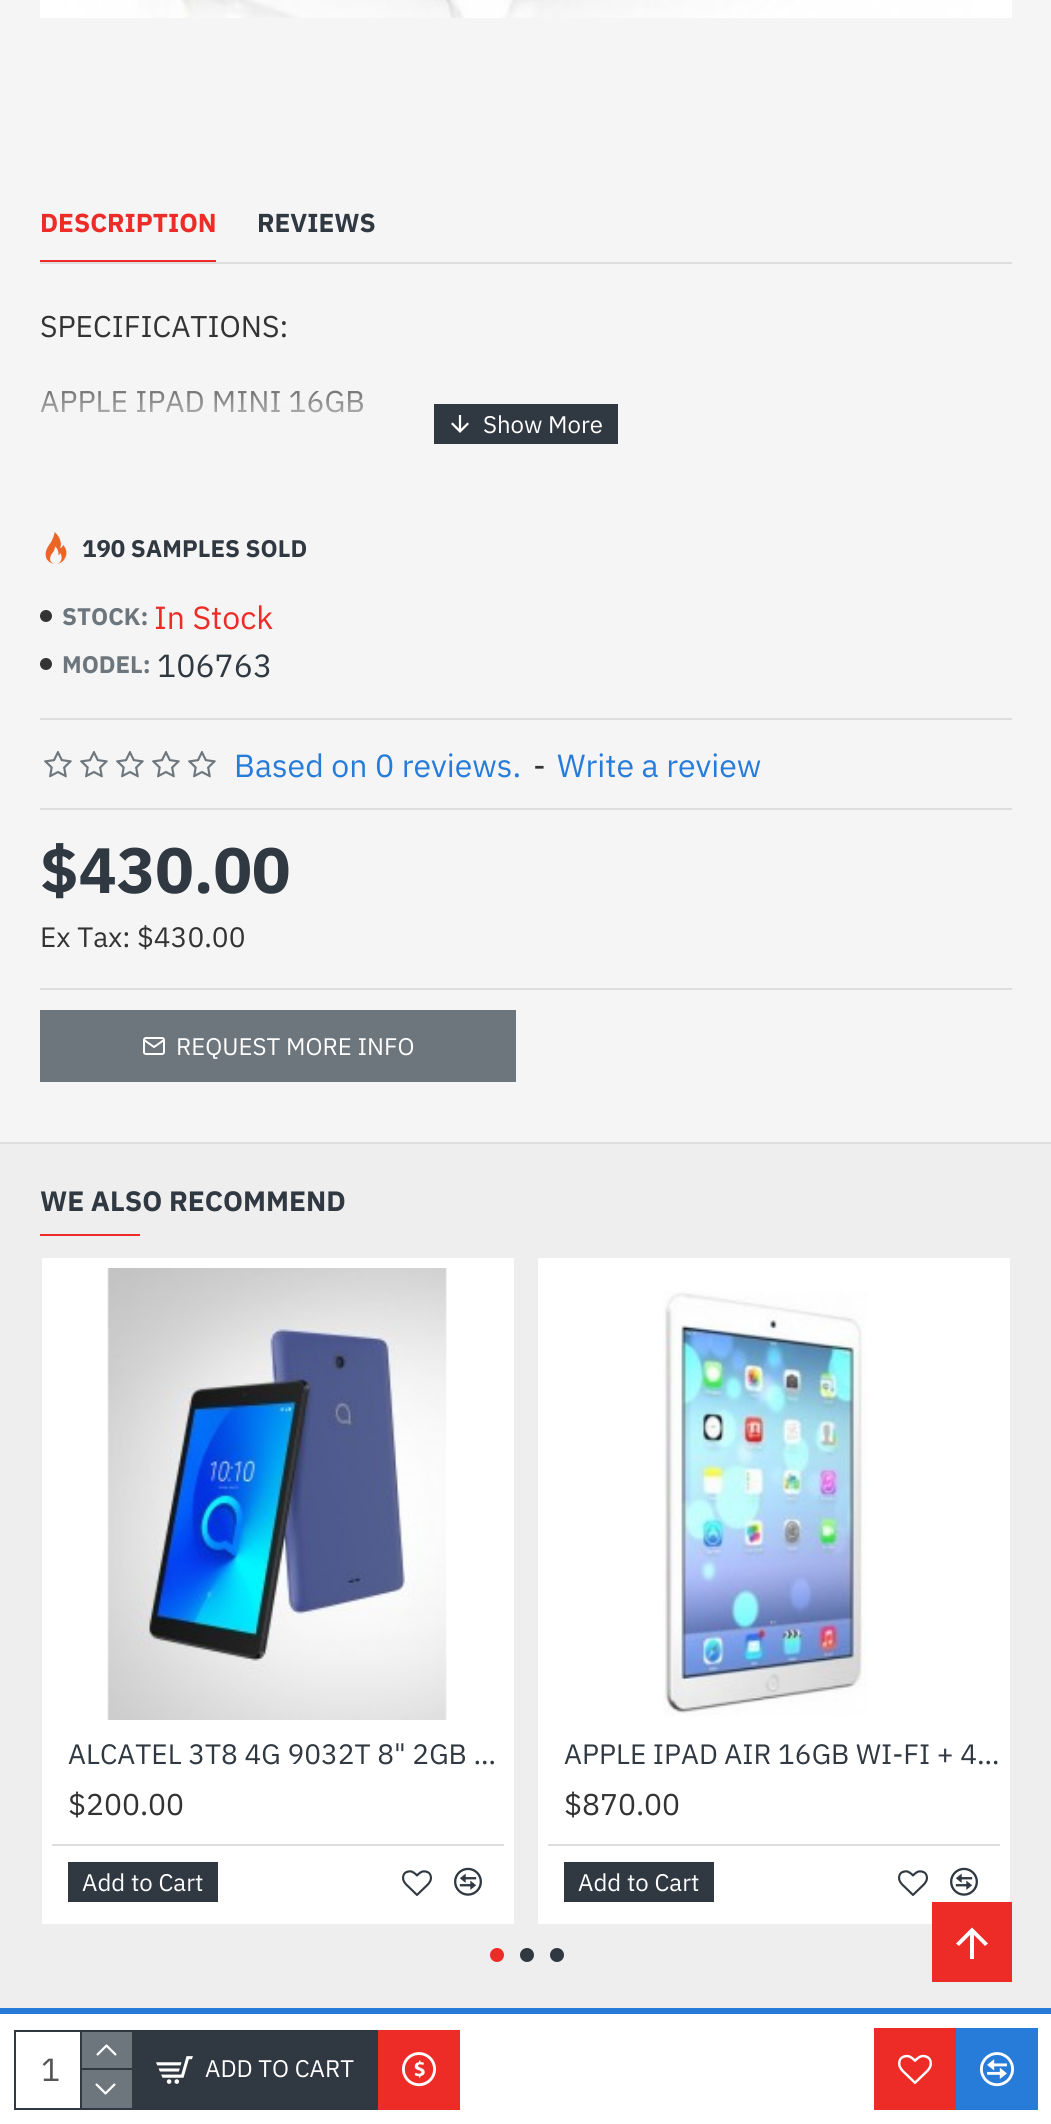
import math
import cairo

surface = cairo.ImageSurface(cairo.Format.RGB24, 1051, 2124)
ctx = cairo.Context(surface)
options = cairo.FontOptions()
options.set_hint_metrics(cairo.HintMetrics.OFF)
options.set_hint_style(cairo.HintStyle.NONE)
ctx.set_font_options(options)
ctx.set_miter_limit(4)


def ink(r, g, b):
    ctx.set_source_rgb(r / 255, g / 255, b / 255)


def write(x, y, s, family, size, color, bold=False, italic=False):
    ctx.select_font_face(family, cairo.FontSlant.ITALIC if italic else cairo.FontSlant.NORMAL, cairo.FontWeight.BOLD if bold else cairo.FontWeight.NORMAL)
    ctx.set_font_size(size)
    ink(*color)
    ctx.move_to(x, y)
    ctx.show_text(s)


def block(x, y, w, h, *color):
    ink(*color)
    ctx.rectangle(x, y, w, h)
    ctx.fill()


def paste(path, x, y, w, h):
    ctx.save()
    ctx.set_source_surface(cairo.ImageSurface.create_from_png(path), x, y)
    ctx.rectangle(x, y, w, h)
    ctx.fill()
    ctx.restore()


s1 = dict(family="IBM Plex Sans", size=26, color=(237, 44, 40), bold=True)
s2 = dict(family="IBM Plex Sans", size=26, color=(48, 56, 65), bold=True)
s3 = dict(family="IBM Plex Sans", size=30, color=(51, 51, 51))
s4 = dict(family="IBM Plex Sans", size=24, color=(255, 255, 255))
s5 = dict(family="IBM Plex Sans", size=24, color=(48, 56, 65), bold=True)
s6 = dict(family="IBM Plex Sans", size=24, color=(109, 118, 125), bold=True)
s7 = dict(family="IBM Plex Sans", size=32, color=(237, 44, 40))
s8 = dict(family="IBM Plex Sans", size=32, color=(48, 56, 65))
s9 = dict(family="IBM Plex Sans", size=32, color=(39, 124, 217))
s10 = dict(family="IBM Plex Sans", size=32, color=(51, 51, 51))
s11 = dict(family="IBM Plex Sans", size=64, color=(48, 56, 65), bold=True)
s12 = dict(family="IBM Plex Sans", size=28, color=(51, 51, 51))
s13 = dict(family="IBM Plex Sans", size=32, color=(85, 85, 85))
s14 = dict(family="IBM Plex Sans", size=28, color=(48, 56, 65), bold=True)
s15 = dict(family="IBM Plex Sans", size=28, color=(48, 56, 65))

ink(245, 245, 245)
ctx.paint()
paste("pic1.png", 40, 0, 972, 18)
block(40, 262, 972, 2, 221, 221, 221)
block(40, 260, 176, 2, 237, 44, 40)
write(40, 232, "DESCRIPTION", **s1)
write(257, 232, "REVIEWS", **s2)
write(40, 337, "SPECIFICATIONS:", **s3)
write(40, 412, "APPLE IPAD MINI 16GB", **s3)
gradient = cairo.LinearGradient(526, 364, 526, 444)
gradient.add_color_stop_rgba(0, 0.961, 0.961, 0.961, 0)
gradient.add_color_stop_rgba(1, 0.961, 0.961, 0.961, 1)
ctx.set_source(gradient)
ctx.rectangle(40, 390, 323, 23)
ctx.fill()
block(434, 404, 184, 40, 48, 56, 65)
paste("pic2.png", 451, 415, 18, 18)
write(483, 433, "Show More", **s4)
paste("pic3.png", 45, 532, 22, 32)
write(82, 557, "190 SAMPLES SOLD", **s5)
paste("pic4.png", 40, 610, 12, 12)
write(62, 625, "STOCK:", **s6)
write(154, 629, "In Stock", **s7)
paste("pic4.png", 40, 658, 12, 12)
write(62, 673, "MODEL:", **s6)
write(157, 677, "106763", **s8)
block(40, 718, 972, 2, 221, 221, 221)
block(40, 808, 972, 2, 221, 221, 221)
paste("pic5.png", 44, 750, 28, 28)
paste("pic5.png", 80, 750, 28, 28)
paste("pic5.png", 116, 750, 28, 28)
paste("pic5.png", 152, 750, 28, 28)
paste("pic5.png", 188, 750, 28, 28)
write(234, 777, "Based on 0 reviews.", **s9)
write(533, 777, "-", **s10)
write(557, 777, "Write a review", **s9)
write(40, 893, "$430.00", **s11)
write(40, 947, "Ex Tax: $430.00", **s12)
block(0, 2014, 1051, 110, 255, 255, 255)
block(0, 2008, 1051, 6, 39, 124, 217)
ctx.rectangle(15, 2031, 118, 78)
ink(48, 56, 65)
ctx.stroke()
write(41, 2081, "1", **s13)
block(80, 2032, 2, 76, 48, 56, 65)
block(82, 2032, 50, 36, 109, 118, 125)
block(82, 2068, 50, 2, 48, 56, 65)
paste("pic6.png", 96, 2044, 21, 12)
block(82, 2070, 50, 38, 109, 118, 125)
paste("pic7.png", 95, 2083, 21, 12)
block(134, 2030, 244, 80, 48, 56, 65)
paste("pic8.png", 156, 2056, 37, 28)
write(205, 2077, "ADD TO CART", **s4)
block(378, 2030, 82, 80, 237, 44, 40)
paste("pic9.png", 402, 2052, 34, 35)
block(874, 2028, 82, 82, 237, 44, 40)
paste("pic10.png", 898, 2054, 34, 30)
block(956, 2028, 82, 82, 39, 124, 217)
paste("pic11.png", 980, 2052, 34, 35)
block(40, 988, 972, 2, 221, 221, 221)
block(40, 1010, 476, 72, 109, 118, 125)
paste("pic12.png", 143, 1037, 22, 18)
write(176, 1055, "REQUEST MORE INFO", **s4)
block(0, 1144, 1051, 864, 238, 238, 238)
block(0, 1142, 1051, 2, 221, 221, 221)
write(40, 1211, "WE ALSO RECOMMEND", **s14)
block(40, 1234, 100, 2, 237, 44, 40)
block(42, 1258, 472, 666, 255, 255, 255)
paste("pic13.png", 107, 1268, 340, 452)
write(68, 1764, "ALCATEL 3T8 4G 9032T 8\" 2GB …", **s15)
write(68, 1815, "$200.00", **s3)
block(52, 1844, 452, 2, 221, 221, 221)
block(68, 1862, 150, 40, 48, 56, 65)
write(82, 1891, "Add to Cart", **s4)
paste("pic14.png", 402, 1870, 30, 26)
paste("pic15.png", 454, 1867, 28, 29)
block(538, 1258, 472, 666, 255, 255, 255)
paste("pic16.png", 663, 1291, 204, 425)
write(564, 1764, "APPLE IPAD AIR 16GB WI-FI + 4…", **s15)
write(564, 1815, "$870.00", **s3)
block(548, 1844, 452, 2, 221, 221, 221)
block(564, 1862, 150, 40, 48, 56, 65)
write(578, 1891, "Add to Cart", **s4)
paste("pic14.png", 898, 1870, 30, 26)
paste("pic15.png", 950, 1867, 28, 29)
ink(237, 44, 40)
ctx.arc(497, 1955, 7, 0, 2 * math.pi)
ctx.fill()
ink(48, 56, 65)
ctx.arc(527, 1955, 7, 0, 2 * math.pi)
ctx.fill()
ctx.arc(557, 1955, 7, 0, 2 * math.pi)
ctx.fill()
block(932, 1902, 80, 80, 237, 44, 40)
ink(255, 255, 255)
ctx.new_path()
ctx.move_to(956, 1943.5)
ctx.line_to(972, 1927.5)
ctx.line_to(988, 1943.5)
ctx.line_to(985, 1946)
ctx.line_to(974, 1935)
ctx.line_to(974, 1959)
ctx.line_to(970, 1959)
ctx.line_to(970, 1935)
ctx.line_to(959, 1946)
ctx.close_path()
ctx.fill()
surface.write_to_png("screenshot.png")
